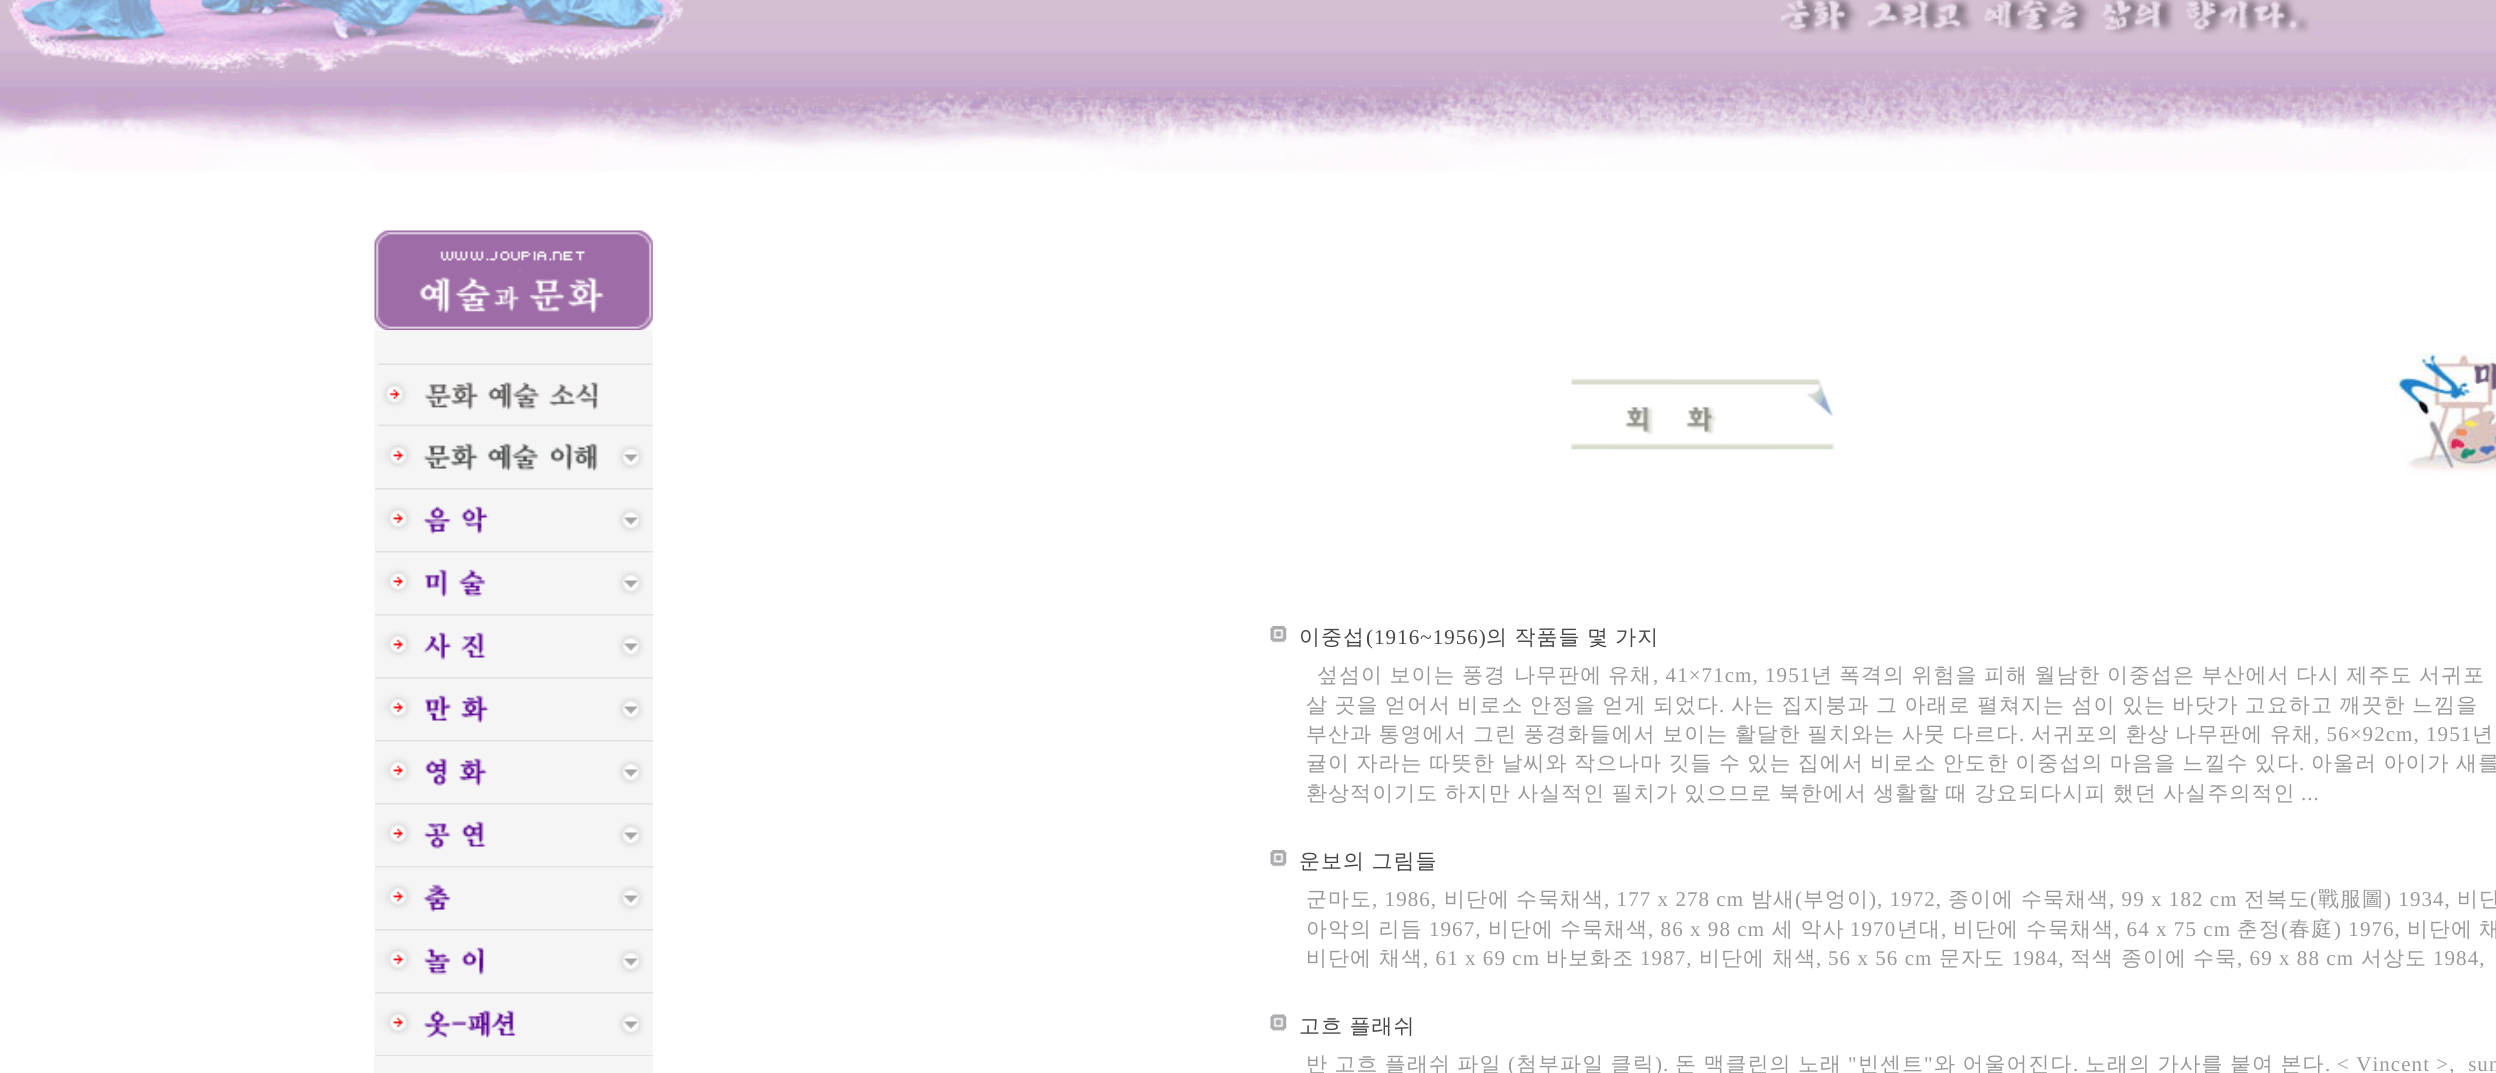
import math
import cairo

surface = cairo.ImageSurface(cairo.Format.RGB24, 2496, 1073)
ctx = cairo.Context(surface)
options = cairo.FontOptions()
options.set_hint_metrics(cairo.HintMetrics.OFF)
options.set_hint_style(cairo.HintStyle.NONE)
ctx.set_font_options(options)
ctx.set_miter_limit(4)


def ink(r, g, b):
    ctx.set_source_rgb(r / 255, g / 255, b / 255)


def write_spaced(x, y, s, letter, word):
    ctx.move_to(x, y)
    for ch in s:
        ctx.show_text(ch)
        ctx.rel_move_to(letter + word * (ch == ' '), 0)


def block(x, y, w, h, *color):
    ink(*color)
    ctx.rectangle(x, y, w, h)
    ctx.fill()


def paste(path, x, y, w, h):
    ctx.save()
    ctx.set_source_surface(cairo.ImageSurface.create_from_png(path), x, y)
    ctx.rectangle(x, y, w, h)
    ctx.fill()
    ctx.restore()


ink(255, 255, 255)
ctx.paint()
paste("pic2.png", 0, 0, 2496, 172)
paste("pic1.png", 1780, 0, 531, 36)
paste("pic3.png", 374, 230, 279, 101)
paste("pic4.png", 374, 330, 279, 36)
paste("pic5.png", 374, 365, 279, 62)
block(375, 488, 278, 2, 225, 225, 225)
paste("pic6.png", 374, 427, 279, 61)
block(375, 551, 278, 2, 225, 225, 225)
paste("pic7.png", 374, 489, 279, 62)
block(375, 614, 278, 2, 225, 225, 225)
paste("pic8.png", 374, 552, 279, 62)
block(375, 677, 278, 2, 225, 225, 225)
paste("pic9.png", 374, 615, 279, 62)
block(375, 740, 278, 2, 225, 225, 225)
paste("pic10.png", 374, 678, 279, 62)
block(375, 803, 278, 2, 225, 225, 225)
paste("pic11.png", 374, 741, 279, 62)
block(375, 866, 278, 2, 225, 225, 225)
paste("pic12.png", 374, 804, 279, 62)
block(375, 929, 278, 2, 225, 225, 225)
paste("pic13.png", 374, 867, 279, 62)
block(375, 992, 278, 2, 225, 225, 225)
paste("pic14.png", 374, 930, 279, 62)
block(375, 1055, 278, 1, 225, 225, 225)
paste("pic15.png", 374, 993, 279, 62)
block(374, 1056, 279, 17, 245, 245, 245)
paste("pic16.png", 1571, 379, 263, 71)
paste("pic17.png", 2392, 353, 104, 123)
paste("pic18.png", 1270, 626, 17, 17)
ctx.select_font_face("WenQuanYi Zen Hei Medium")
ctx.set_font_size(21)
ink(70, 70, 70)
write_spaced(1299, 644, "이중섭", 1.05, 0)
ctx.select_font_face("Liberation Serif")
write_spaced(1366, 644, "(1916~1956)", 1.05, 0)
ctx.select_font_face("WenQuanYi Zen Hei Medium")
write_spaced(1486, 644, "의 작품들 몇 가지", 1.05, -1)
ink(153, 153, 153)
write_spaced(1317, 682, "섶섬이 보이는 풍경", 1.05, -1)
write_spaced(1514, 682, "나무판에", 1.05, 0)
write_spaced(1608, 682, "유채", 1.05, 0)
ctx.select_font_face("Liberation Serif")
write_spaced(1653, 682, ", 41×71cm, 1951", 1.05, 0)
ctx.select_font_face("WenQuanYi Zen Hei Medium")
write_spaced(1811, 682, "년", 1.05, 0)
write_spaced(1839, 682, "폭격의 위험을 피해 월남한 이중섭은 부산에서 다시 제주도 서귀포", 1.05, -1)
write_spaced(1306, 712, "살 곳을 얻어서 비로소 안정을 얻게 되었다", 1.05, -1)
ctx.select_font_face("Liberation Serif")
write_spaced(1719, 712, ".", 1.05, 0)
ctx.select_font_face("WenQuanYi Zen Hei Medium")
write_spaced(1731, 712, "사는 집지붕과 그 아래로 펼쳐지는 섬이 있는 바닷가 고요하고 깨끗한 느낌을", 1.05, -1)
write_spaced(1306, 741, "부산과 통영에서 그린 풍경화들에서 보이는 활달한 필치와는 사뭇 다르다", 1.05, -1)
ctx.select_font_face("Liberation Serif")
write_spaced(2019, 741, ".", 1.05, 0)
ctx.select_font_face("WenQuanYi Zen Hei Medium")
write_spaced(2031, 741, "서귀포의 환상", 1.05, -1)
write_spaced(2175, 741, "나무판에", 1.05, 0)
write_spaced(2270, 741, "유채", 1.05, 0)
ctx.select_font_face("Liberation Serif")
write_spaced(2314, 741, ", 56×92cm, 1951", 1.05, 0)
ctx.select_font_face("WenQuanYi Zen Hei Medium")
write_spaced(2472, 741, "년", 1.05, 0)
write_spaced(1306, 770, "귤이 자라는 따뜻한 날씨와 작으나마 깃들 수 있는 집에서 비로소 안도한 이중섭의 마음을 느낄수 있다", 1.05, -1)
ctx.select_font_face("Liberation Serif")
write_spaced(2299, 770, ".", 1.05, 0)
ctx.select_font_face("WenQuanYi Zen Hei Medium")
write_spaced(2311, 770, "아울러 아이가 새를", 1.05, -1)
write_spaced(1306, 800, "환상적이기도 하지만 사실적인 필치가 있으므로 북한에서 생활할 때 강요되다시피 했던 사실주의적인", 1.05, -1)
ctx.select_font_face("Liberation Serif")
write_spaced(2301, 800, "...", 1.05, 0)
paste("pic18.png", 1270, 850, 17, 17)
ctx.select_font_face("WenQuanYi Zen Hei Medium")
ink(70, 70, 70)
write_spaced(1299, 868, "운보의 그림들", 1.05, -1)
ink(153, 153, 153)
write_spaced(1306, 906, "군마도", 1.05, 0)
ctx.select_font_face("Liberation Serif")
write_spaced(1372, 906, ", 1986,", 1.05, 0)
ctx.select_font_face("WenQuanYi Zen Hei Medium")
write_spaced(1444, 906, "비단에", 1.05, 0)
write_spaced(1516, 906, "수묵채색", 1.05, 0)
ctx.select_font_face("Liberation Serif")
write_spaced(1604, 906, ", 177 x 278 cm", 1.05, 0)
ctx.select_font_face("WenQuanYi Zen Hei Medium")
write_spaced(1751, 906, "밤새", 1.05, 0)
ctx.select_font_face("Liberation Serif")
write_spaced(1795, 906, "(", 1.05, 0)
ctx.select_font_face("WenQuanYi Zen Hei Medium")
write_spaced(1803, 906, "부엉이", 1.05, 0)
ctx.select_font_face("Liberation Serif")
write_spaced(1869, 906, "), 1972,", 1.05, 0)
ctx.select_font_face("WenQuanYi Zen Hei Medium")
write_spaced(1948, 906, "종이에", 1.05, 0)
write_spaced(2021, 906, "수묵채색", 1.05, 0)
ctx.select_font_face("Liberation Serif")
write_spaced(2109, 906, ", 99 x 182 cm", 1.05, 0)
ctx.select_font_face("WenQuanYi Zen Hei Medium")
write_spaced(2244, 906, "전복도", 1.05, 0)
ctx.select_font_face("Liberation Serif")
write_spaced(2310, 906, "(", 1.05, 0)
ctx.select_font_face("WenQuanYi Zen Hei Medium")
write_spaced(2318, 906, "戰服圖", 1.05, 0)
ctx.select_font_face("Liberation Serif")
write_spaced(2384, 906, ") 1934,", 1.05, 0)
ctx.select_font_face("WenQuanYi Zen Hei Medium")
write_spaced(2457, 906, "비단", 1.05, 0)
write_spaced(1306, 936, "아악의 리듬", 1.05, -1)
ctx.select_font_face("Liberation Serif")
write_spaced(1429, 936, "1967,", 1.05, 0)
ctx.select_font_face("WenQuanYi Zen Hei Medium")
write_spaced(1488, 936, "비단에", 1.05, 0)
write_spaced(1560, 936, "수묵채색", 1.05, 0)
ctx.select_font_face("Liberation Serif")
write_spaced(1648, 936, ", 86 x 98 cm", 1.05, 0)
ctx.select_font_face("WenQuanYi Zen Hei Medium")
write_spaced(1772, 936, "세 악사", 1.05, -1)
ctx.select_font_face("Liberation Serif")
write_spaced(1850, 936, "1970", 1.05, 0)
ctx.select_font_face("WenQuanYi Zen Hei Medium")
write_spaced(1897, 936, "년대", 1.05, 0)
ctx.select_font_face("Liberation Serif")
write_spaced(1941, 936, ",", 1.05, 0)
ctx.select_font_face("WenQuanYi Zen Hei Medium")
write_spaced(1953, 936, "비단에", 1.05, 0)
write_spaced(2026, 936, "수묵채색", 1.05, 0)
ctx.select_font_face("Liberation Serif")
write_spaced(2114, 936, ", 64 x 75 cm", 1.05, 0)
ctx.select_font_face("WenQuanYi Zen Hei Medium")
write_spaced(2237, 936, "춘정", 1.05, 0)
ctx.select_font_face("Liberation Serif")
write_spaced(2281, 936, "(", 1.05, 0)
ctx.select_font_face("WenQuanYi Zen Hei Medium")
write_spaced(2289, 936, "春庭", 1.05, 0)
ctx.select_font_face("Liberation Serif")
write_spaced(2334, 936, ") 1976,", 1.05, 0)
ctx.select_font_face("WenQuanYi Zen Hei Medium")
write_spaced(2407, 936, "비단에", 1.05, 0)
write_spaced(2479, 936, "채", 1.05, 0)
write_spaced(1306, 965, "비단에", 1.05, 0)
write_spaced(1379, 965, "채색", 1.05, 0)
ctx.select_font_face("Liberation Serif")
write_spaced(1423, 965, ", 61 x 69 cm", 1.05, 0)
ctx.select_font_face("WenQuanYi Zen Hei Medium")
write_spaced(1546, 965, "바보화조", 1.05, 0)
ctx.select_font_face("Liberation Serif")
write_spaced(1640, 965, "1987,", 1.05, 0)
ctx.select_font_face("WenQuanYi Zen Hei Medium")
write_spaced(1699, 965, "비단에 채색", 1.05, 0)
ctx.select_font_face("Liberation Serif")
write_spaced(1816, 965, ",", 1.05, 0)
write_spaced(1828, 965, "56 x 56 cm", 1.05, 0)
ctx.select_font_face("WenQuanYi Zen Hei Medium")
write_spaced(1939, 965, "문자도", 1.05, 0)
ctx.select_font_face("Liberation Serif")
write_spaced(2012, 965, "1984,", 1.05, 0)
ctx.select_font_face("WenQuanYi Zen Hei Medium")
write_spaced(2070, 965, "적색", 1.05, 0)
write_spaced(2121, 965, "종이에", 1.05, 0)
write_spaced(2193, 965, "수묵", 1.05, 0)
ctx.select_font_face("Liberation Serif")
write_spaced(2237, 965, ", 69 x 88 cm", 1.05, 0)
ctx.select_font_face("WenQuanYi Zen Hei Medium")
write_spaced(2361, 965, "서상도", 1.05, 0)
ctx.select_font_face("Liberation Serif")
write_spaced(2433, 965, "1984,", 1.05, 0)
paste("pic19.png", 1270, 1014, 17, 17)
ctx.select_font_face("WenQuanYi Zen Hei Medium")
ink(70, 70, 70)
write_spaced(1299, 1033, "고흐 플래쉬", 1.05, -1)
ink(153, 153, 153)
write_spaced(1306, 1071, "반 고흐 플래쉬 파일", 1.05, -1)
ctx.select_font_face("Liberation Serif")
write_spaced(1508, 1071, "(", 1.05, 0)
ctx.select_font_face("WenQuanYi Zen Hei Medium")
write_spaced(1516, 1071, "첨부파일 클릭", 1.05, -1)
ctx.select_font_face("Liberation Serif")
write_spaced(1655, 1071, ").", 1.05, 0)
ctx.select_font_face("WenQuanYi Zen Hei Medium")
write_spaced(1675, 1071, "돈 맥클린의 노래", 1.05, -1)
ctx.select_font_face("Liberation Serif")
write_spaced(1848, 1071, "\"", 1.05, 0)
ctx.select_font_face("WenQuanYi Zen Hei Medium")
write_spaced(1858, 1071, "빈센트", 1.05, 0)
ctx.select_font_face("Liberation Serif")
write_spaced(1924, 1071, "\"", 1.05, 0)
ctx.select_font_face("WenQuanYi Zen Hei Medium")
write_spaced(1934, 1071, "와 어울어진다", 1.05, -1)
ctx.select_font_face("Liberation Serif")
write_spaced(2073, 1071, ".", 1.05, 0)
ctx.select_font_face("WenQuanYi Zen Hei Medium")
write_spaced(2085, 1071, "노래의 가사를 붙여 본다", 1.05, -1)
ctx.select_font_face("Liberation Serif")
write_spaced(2325, 1071, ".", 1.05, 0)
write_spaced(2337, 1071, "< Vincent >,  sun", 1.05, 0)
surface.write_to_png("screenshot.png")
